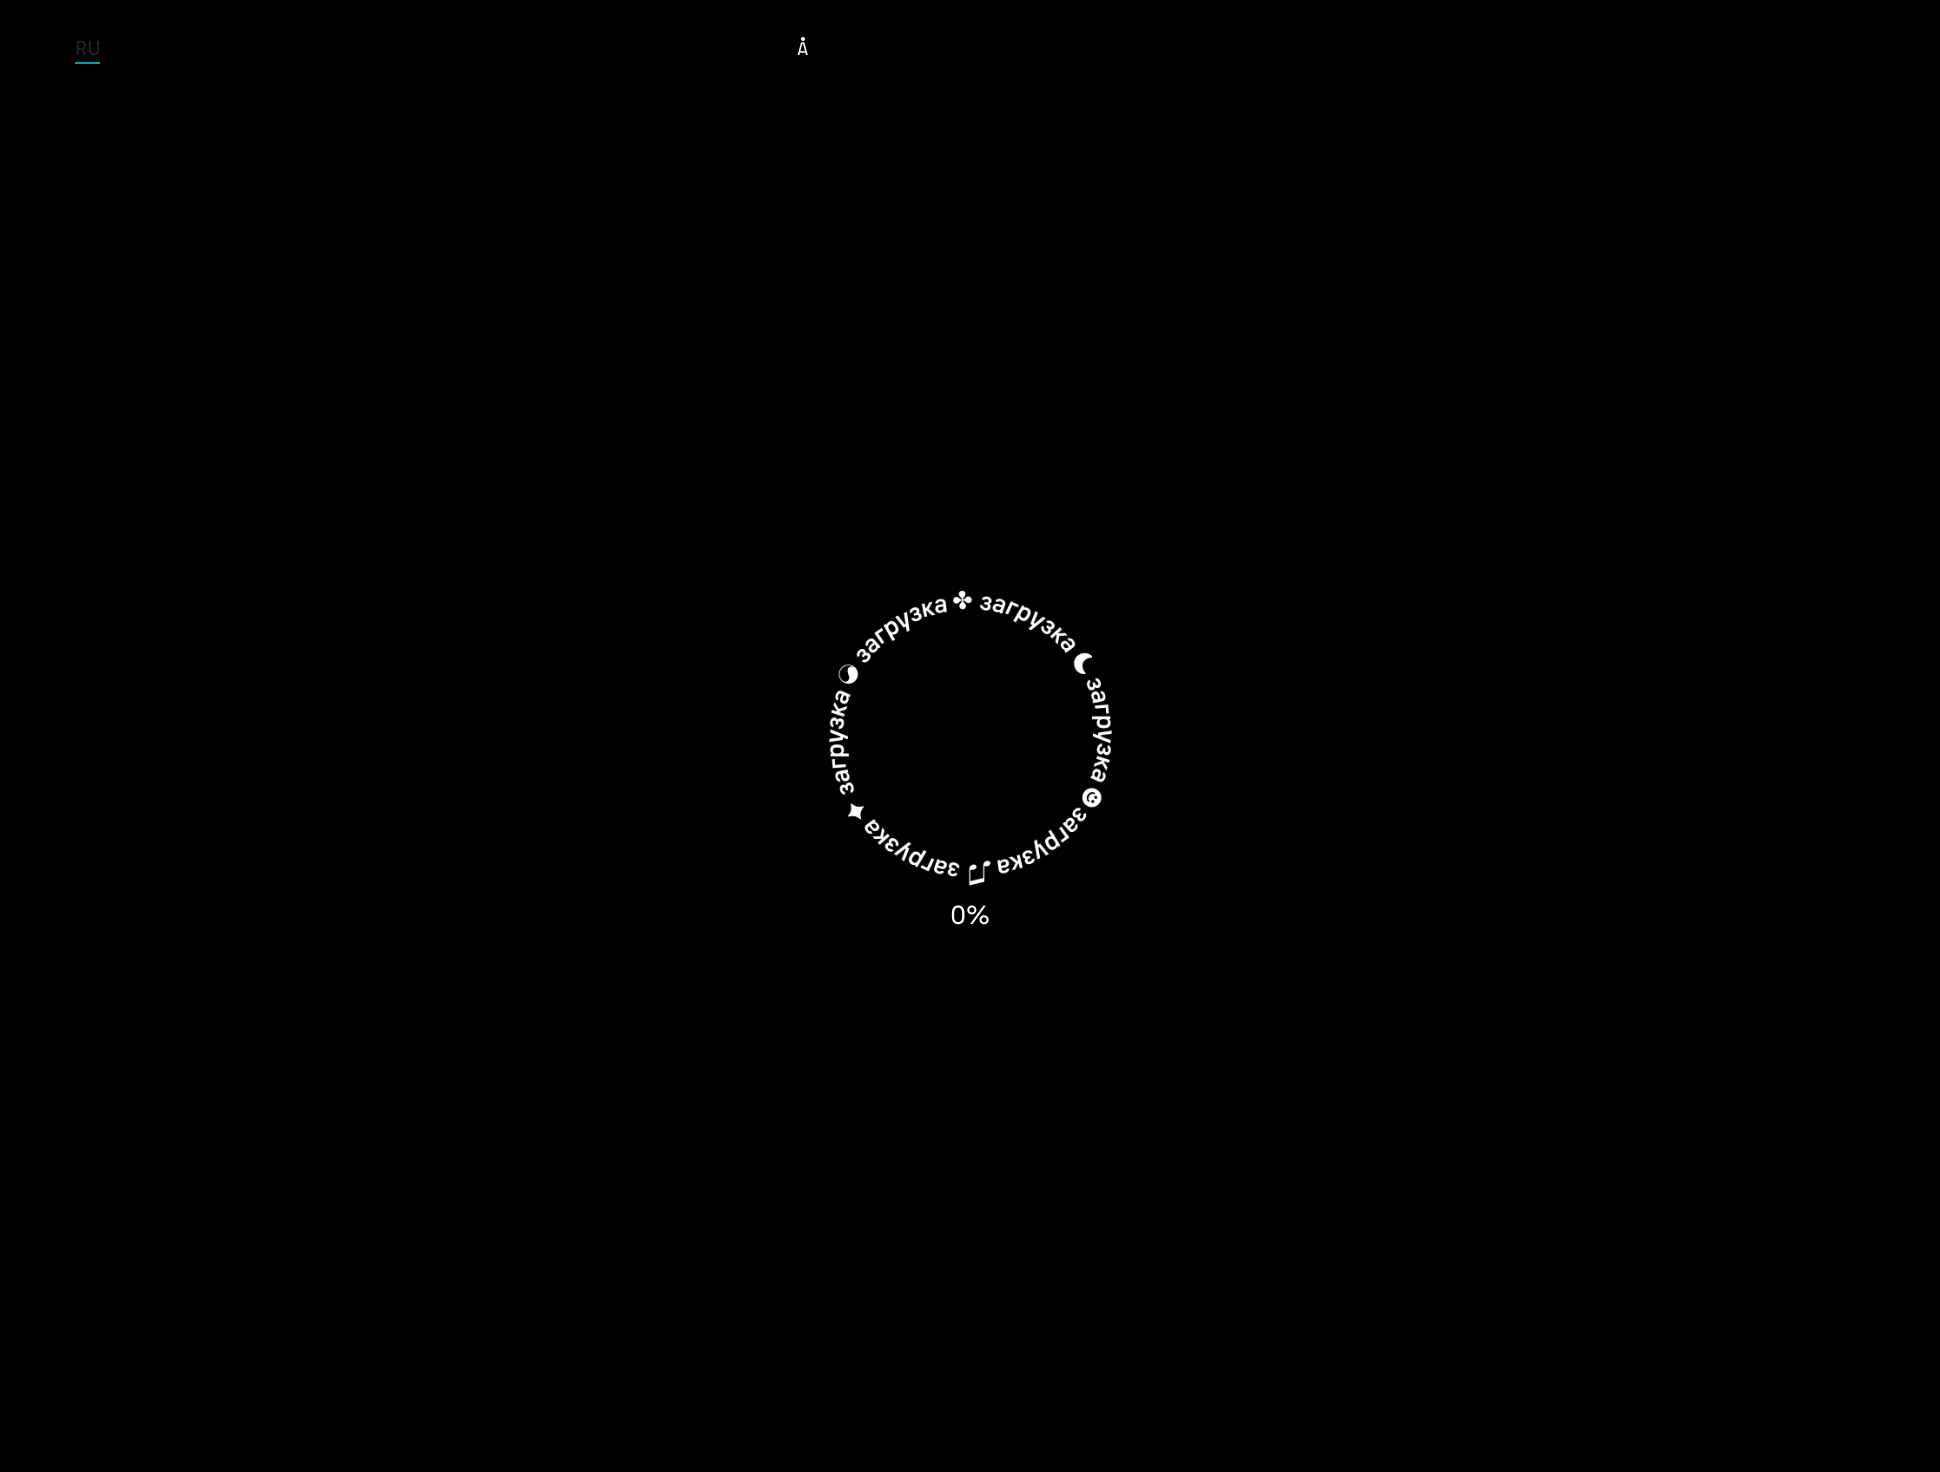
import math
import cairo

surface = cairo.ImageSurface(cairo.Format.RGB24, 1940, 1472)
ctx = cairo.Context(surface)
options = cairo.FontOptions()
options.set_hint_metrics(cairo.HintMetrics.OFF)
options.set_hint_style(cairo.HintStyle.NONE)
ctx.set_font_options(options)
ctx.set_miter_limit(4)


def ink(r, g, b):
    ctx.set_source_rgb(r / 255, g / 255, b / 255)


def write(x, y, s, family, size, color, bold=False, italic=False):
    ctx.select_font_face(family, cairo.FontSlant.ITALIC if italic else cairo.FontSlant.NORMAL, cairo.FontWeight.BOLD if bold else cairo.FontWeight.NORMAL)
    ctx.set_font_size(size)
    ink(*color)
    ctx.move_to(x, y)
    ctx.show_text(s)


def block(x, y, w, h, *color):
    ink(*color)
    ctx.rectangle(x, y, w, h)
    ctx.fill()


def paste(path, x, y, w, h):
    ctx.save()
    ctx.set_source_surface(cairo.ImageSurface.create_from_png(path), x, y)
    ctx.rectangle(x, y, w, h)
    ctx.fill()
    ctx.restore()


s1 = dict(family="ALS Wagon", size=20, color=(33, 37, 41))
s2 = dict(family="ALS Wagon", size=26, color=(255, 255, 255))

ink(0, 0, 0)
ctx.paint()
block(75, 62, 25, 2, 17, 154, 167)
write(75, 55, "RU", **s1)
ink(255, 255, 255)
ctx.new_path()
ctx.arc(803, 39, 2, 0, 2 * math.pi)
ctx.fill()
paste("pic1.png", 797, 42, 11, 13)
paste("pic2.png", 829, 590, 283, 296)
write(950, 924, "0%", **s2)
surface.write_to_png("screenshot.png")
